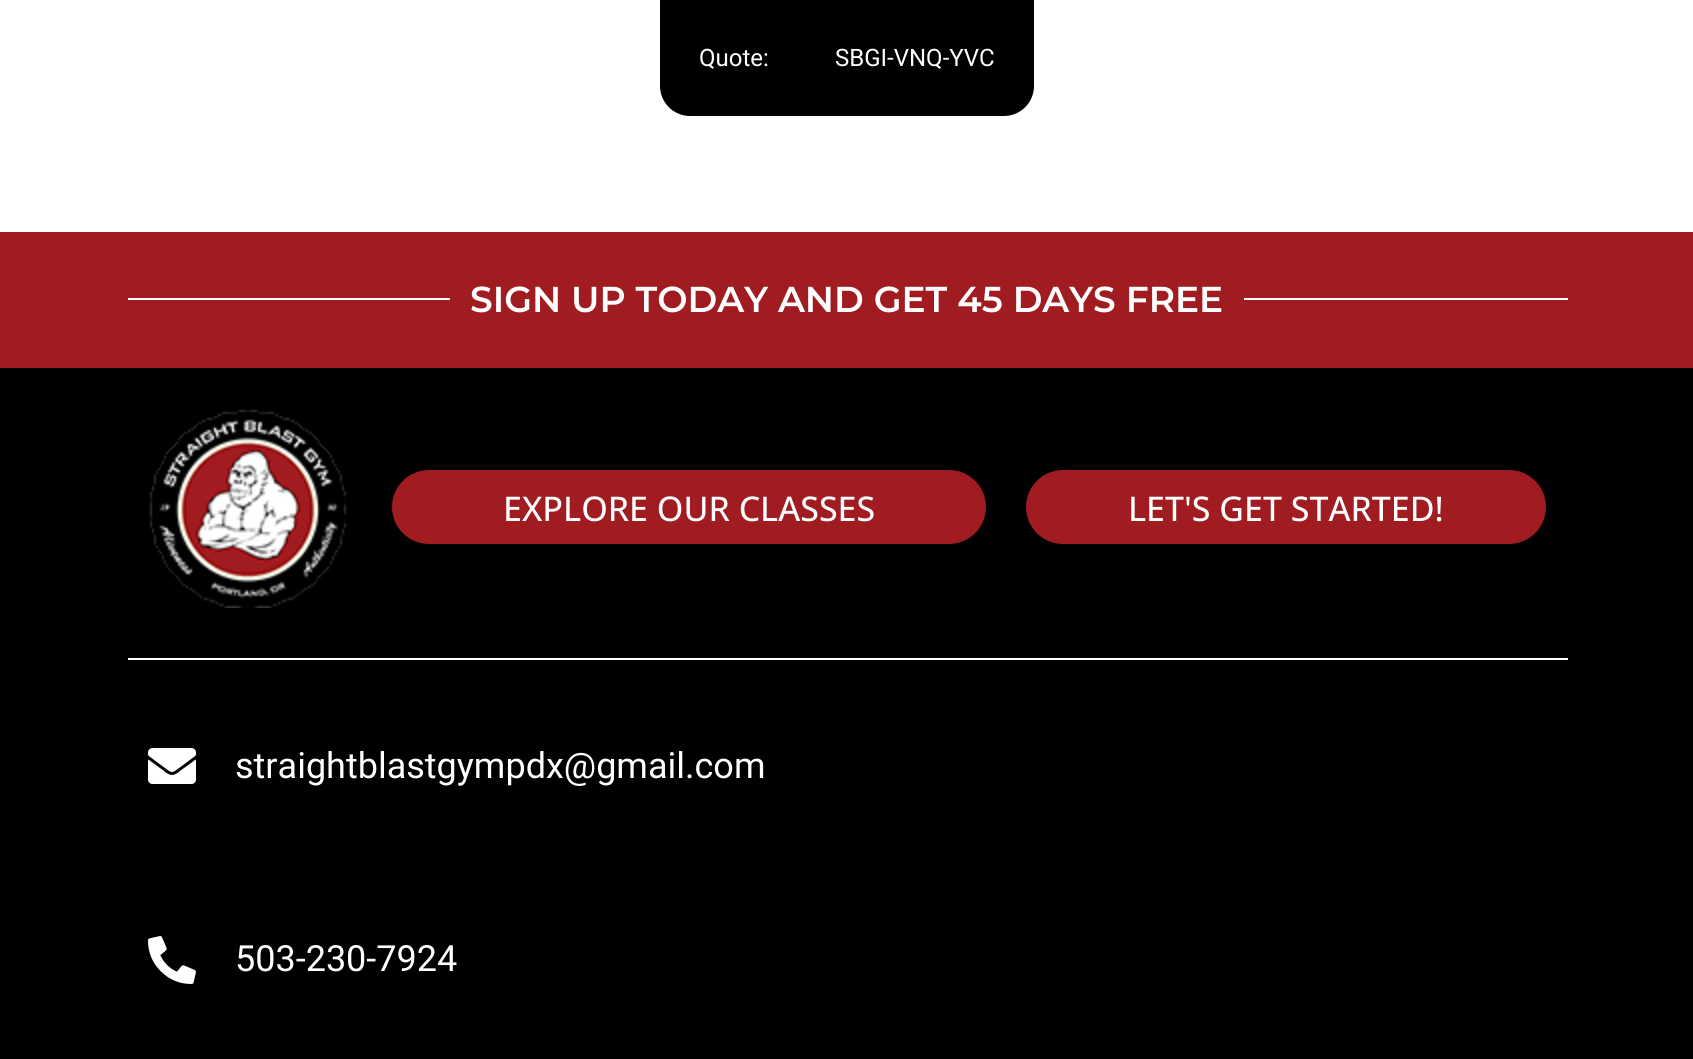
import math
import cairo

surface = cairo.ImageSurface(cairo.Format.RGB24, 1693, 1059)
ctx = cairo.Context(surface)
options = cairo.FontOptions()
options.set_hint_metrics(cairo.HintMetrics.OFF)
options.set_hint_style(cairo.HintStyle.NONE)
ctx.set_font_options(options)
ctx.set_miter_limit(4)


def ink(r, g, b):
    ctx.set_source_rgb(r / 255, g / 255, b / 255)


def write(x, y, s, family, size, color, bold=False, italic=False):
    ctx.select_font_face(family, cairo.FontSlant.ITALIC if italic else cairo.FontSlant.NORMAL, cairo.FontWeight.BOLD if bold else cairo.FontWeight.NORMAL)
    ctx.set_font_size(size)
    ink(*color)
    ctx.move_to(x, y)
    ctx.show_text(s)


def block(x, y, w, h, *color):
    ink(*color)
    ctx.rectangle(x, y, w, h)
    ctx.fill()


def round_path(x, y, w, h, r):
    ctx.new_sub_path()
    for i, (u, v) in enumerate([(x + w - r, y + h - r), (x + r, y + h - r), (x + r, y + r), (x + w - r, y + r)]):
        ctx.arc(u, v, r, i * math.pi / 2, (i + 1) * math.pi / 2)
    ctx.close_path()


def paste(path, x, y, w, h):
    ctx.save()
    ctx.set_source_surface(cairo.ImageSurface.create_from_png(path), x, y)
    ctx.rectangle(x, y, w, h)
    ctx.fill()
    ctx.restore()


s1 = dict(family="Roboto", size=24, color=(255, 255, 255))
s2 = dict(family="Montserrat SemiBold", size=36, color=(255, 255, 255))
s3 = dict(family="Open Sans Medium", size=34, color=(255, 255, 255))
s4 = dict(family="Roboto", size=36, color=(255, 255, 255))

ink(255, 255, 255)
ctx.paint()
ink(0, 0, 0)
ctx.new_path()
ctx.move_to(660, 0)
ctx.line_to(1034, 0)
ctx.line_to(1034, 86)
ctx.curve_to(1034, 102.5, 1020.5, 116, 1004, 116)
ctx.line_to(690, 116)
ctx.curve_to(673.5, 116, 660, 102.5, 660, 86)
ctx.close_path()
ctx.fill()
write(699, 66, "Quote:", **s1)
write(835, 66, "SBGI-VNQ-YVC", **s1)
block(0, 232, 1693, 136, 160, 28, 33)
block(128, 298, 322, 2, 255, 255, 255)
write(470, 312, "SIGN UP TODAY AND GET 45 DAYS FREE", **s2)
block(1244, 298, 324, 2, 255, 255, 255)
block(0, 368, 1693, 691, 0, 0, 0)
paste("pic1.png", 149, 409, 198, 199)
ink(160, 28, 33)
round_path(392, 470, 594, 74, 37)
ctx.fill()
write(503, 521, "EXPLORE OUR CLASSES", **s3)
ink(160, 28, 33)
round_path(1026, 470, 520, 74, 37)
ctx.fill()
write(1128, 521, "LET'S GET STARTED!", **s3)
block(128, 658, 1440, 2, 255, 255, 255)
paste("pic2.png", 148, 748, 48, 36)
write(235, 778, "straightblastgympdx@gmail.com", **s4)
paste("pic3.png", 148, 936, 48, 48)
write(235, 971, "503-230-7924", **s4)
surface.write_to_png("screenshot.png")
